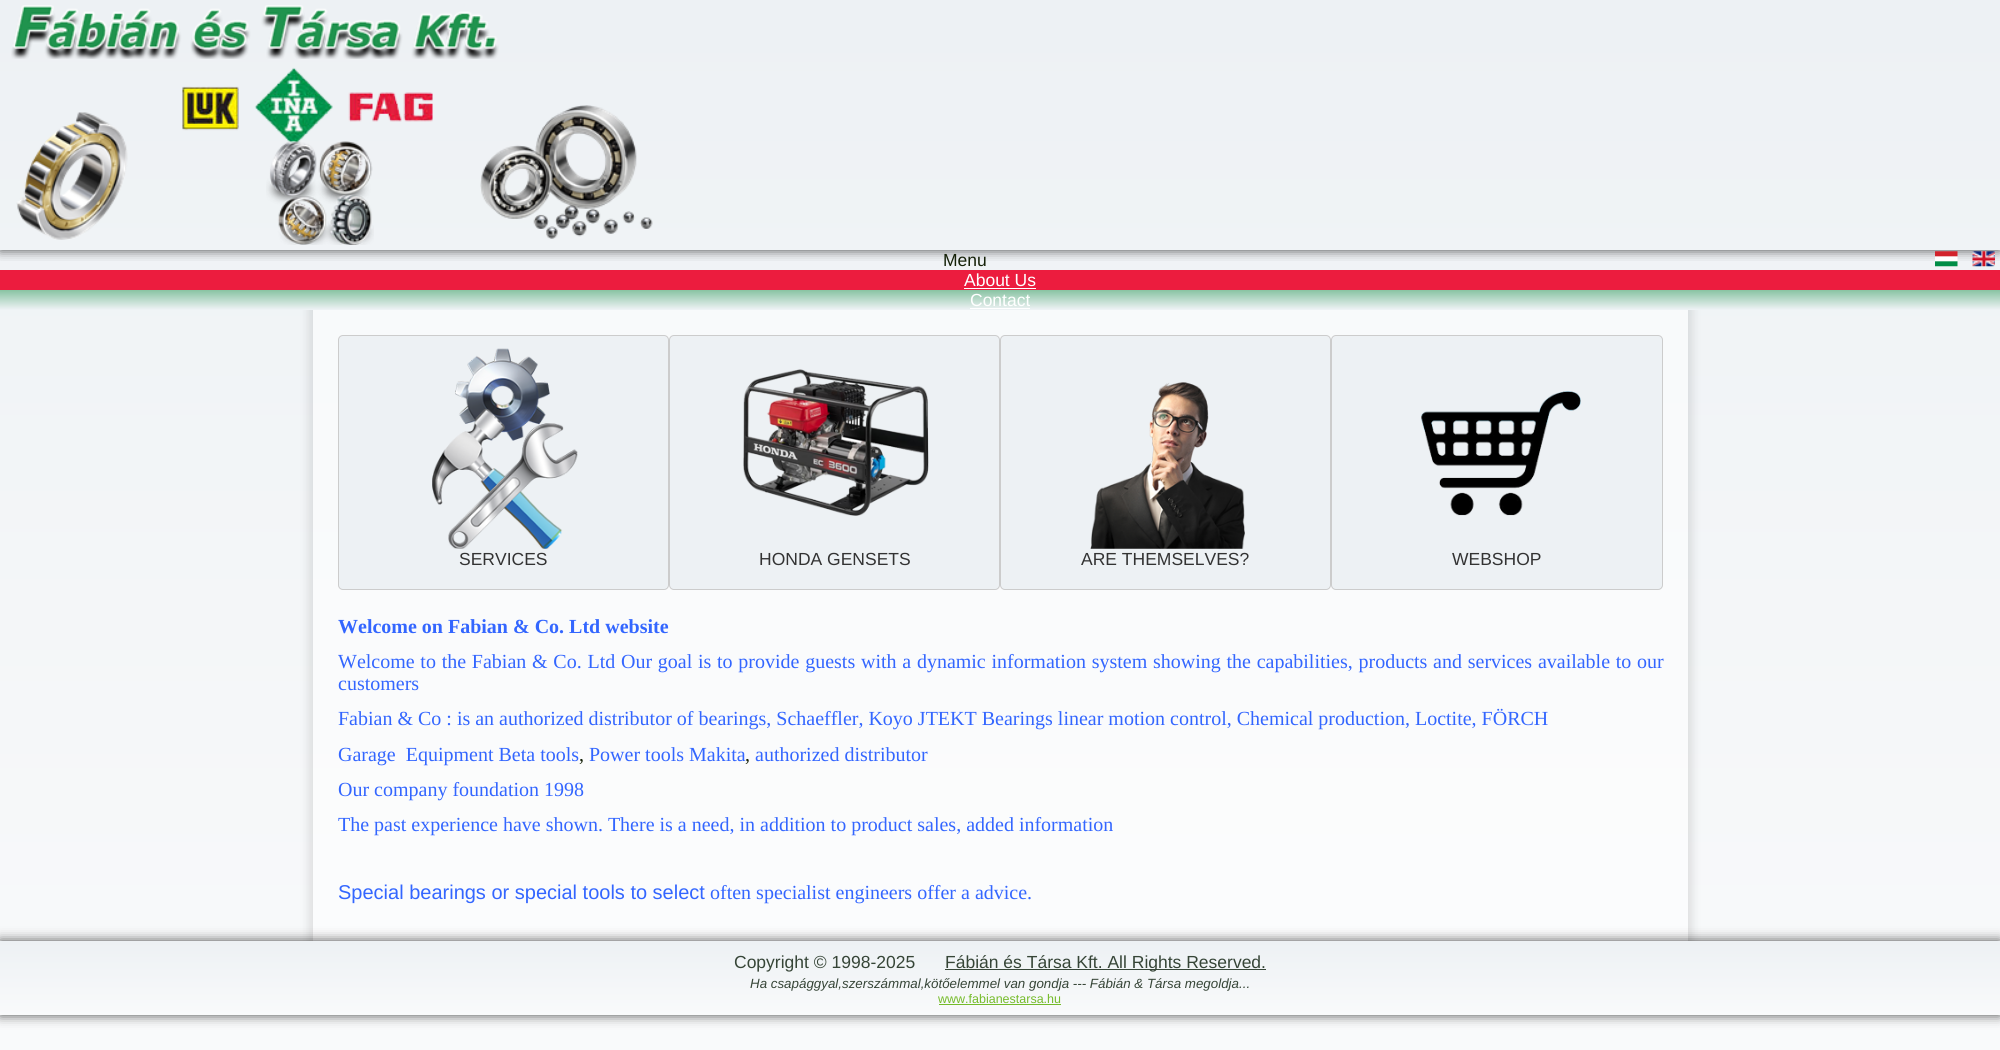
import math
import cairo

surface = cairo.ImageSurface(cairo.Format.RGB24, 2000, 1050)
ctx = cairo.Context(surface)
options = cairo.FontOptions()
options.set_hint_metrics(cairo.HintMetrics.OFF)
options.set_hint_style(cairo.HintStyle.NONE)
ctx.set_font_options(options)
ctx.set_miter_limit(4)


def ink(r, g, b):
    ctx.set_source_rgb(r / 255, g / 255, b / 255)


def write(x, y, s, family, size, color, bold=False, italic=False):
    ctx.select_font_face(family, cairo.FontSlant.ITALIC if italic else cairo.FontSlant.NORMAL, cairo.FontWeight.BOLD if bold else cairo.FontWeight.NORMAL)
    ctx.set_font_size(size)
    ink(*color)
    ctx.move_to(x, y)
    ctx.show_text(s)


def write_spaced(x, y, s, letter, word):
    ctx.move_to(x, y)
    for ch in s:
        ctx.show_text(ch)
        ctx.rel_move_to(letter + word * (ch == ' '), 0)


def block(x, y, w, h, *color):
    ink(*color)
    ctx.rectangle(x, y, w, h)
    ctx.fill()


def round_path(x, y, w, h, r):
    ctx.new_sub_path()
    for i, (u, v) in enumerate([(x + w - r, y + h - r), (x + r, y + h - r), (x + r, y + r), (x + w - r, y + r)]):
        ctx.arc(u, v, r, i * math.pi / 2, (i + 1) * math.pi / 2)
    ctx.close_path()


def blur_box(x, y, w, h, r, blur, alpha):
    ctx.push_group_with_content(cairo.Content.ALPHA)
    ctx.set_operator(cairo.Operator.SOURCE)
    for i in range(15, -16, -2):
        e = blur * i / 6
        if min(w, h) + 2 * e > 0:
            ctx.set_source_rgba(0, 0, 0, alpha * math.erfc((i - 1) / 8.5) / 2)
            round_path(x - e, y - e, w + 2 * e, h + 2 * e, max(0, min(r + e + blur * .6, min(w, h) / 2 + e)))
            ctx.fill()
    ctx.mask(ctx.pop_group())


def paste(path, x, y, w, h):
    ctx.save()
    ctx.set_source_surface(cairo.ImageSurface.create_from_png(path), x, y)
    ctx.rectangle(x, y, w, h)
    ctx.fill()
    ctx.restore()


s1 = dict(family="Liberation Sans", size=17.5, color=(21, 33, 8))
s2 = dict(family="Liberation Sans", size=17.5, color=(255, 255, 255))
s3 = dict(family="Liberation Sans", size=17.5, color=(51, 51, 51))
s4 = dict(family="Liberation Serif", size=20, color=(51, 102, 255), bold=True)
s5 = dict(family="Liberation Serif", size=20, color=(51, 102, 255))
s6 = dict(family="Liberation Serif", size=20, color=(21, 33, 8))
s7 = dict(family="Liberation Sans", size=20, color=(51, 102, 255))
s8 = dict(family="Liberation Sans", size=17.5, color=(54, 69, 55))
s9 = dict(family="Liberation Sans", size=13.35, color=(54, 69, 55), italic=True)
s10 = dict(family="Liberation Sans", size=12.5, color=(117, 187, 42))

ink(255, 255, 255)
ctx.paint()
gradient = cairo.LinearGradient(1000, 0, 1000, 1050)
gradient.add_color_stop_rgba(0, 0.929, 0.945, 0.957, 1)
gradient.add_color_stop_rgba(1, 0.976, 0.98, 0.984, 1)
ctx.set_source(gradient)
ctx.rectangle(0, 0, 2000, 1050)
ctx.fill()
ctx.save()
ctx.rectangle(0, 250, 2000, 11)
ctx.clip()
ink(0, 0, 0)
blur_box(0, 0, 2000, 250, 0, 6, 0.7)
ctx.restore()
paste("pic1.png", 11, 5, 488, 54)
paste("pic2.png", 16, 112, 112, 128)
paste("pic3.png", 182, 67, 251, 76)
paste("pic4.png", 480, 105, 173, 134)
paste("pic5.png", 266, 140, 108, 105)
write(943, 266, "Menu", **s1)
ctx.save()
ctx.set_fill_rule(cairo.FillRule.EVEN_ODD)
ctx.new_path()
ctx.move_to(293, 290)
ctx.line_to(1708, 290)
ctx.line_to(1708, 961)
ctx.line_to(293, 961)
ctx.close_path()
ctx.move_to(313, 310)
ctx.line_to(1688, 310)
ctx.line_to(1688, 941)
ctx.line_to(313, 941)
ctx.close_path()
ctx.clip()
ink(0, 0, 0)
blur_box(308, 305, 1385, 641, 0, 4.5, 0.1)
ctx.restore()
gradient = cairo.LinearGradient(1000, 270, 1000, 310)
gradient.add_color_stop_rgba(0, 0.125, 0.576, 0.306, 1)
gradient.add_color_stop_rgba(1, 0.941, 0.953, 0.965, 1)
ctx.set_source(gradient)
ctx.rectangle(0, 290, 2000, 20)
ctx.fill()
block(0, 270, 2000, 20, 236, 28, 62)
write(964, 286, "About Us", **s2)
block(964, 288, 72, 1, 255, 255, 255)
write(970, 306, "Contact", **s2)
block(970, 308, 60, 1, 255, 255, 255)
paste("pic6.png", 1935, 251, 23, 16)
paste("pic7.png", 1972, 251, 23, 16)
ctx.set_source_rgba(1, 1, 1, 0.5)
ctx.rectangle(313, 310, 1375, 631)
ctx.fill()
ink(237, 241, 244)
round_path(338.5, 335.5, 330, 254, 4.5)
ctx.fill_preserve()
ink(204, 204, 204)
ctx.set_line_width(1)
ctx.stroke()
paste("pic8.png", 432, 348, 146, 201)
write(459, 565, "SERVICES", **s3)
ink(237, 241, 244)
round_path(669.5, 335.5, 330, 254, 4.5)
ctx.fill_preserve()
ink(204, 204, 204)
ctx.stroke()
paste("pic9.png", 743, 369, 186, 147)
write(759, 565, "HONDA GENSETS", **s3)
ink(237, 241, 244)
round_path(1000.5, 335.5, 330, 254, 4.5)
ctx.fill_preserve()
ink(204, 204, 204)
ctx.stroke()
paste("pic10.png", 1090, 382, 155, 167)
write(1081, 565, "ARE THEMSELVES?", **s3)
ink(237, 241, 244)
round_path(1331.5, 335.5, 331, 254, 4.5)
ctx.fill_preserve()
ink(204, 204, 204)
ctx.stroke()
paste("pic11.png", 1421, 391, 160, 125)
write(1452, 565, "WEBSHOP", **s3)
write(338, 633, "Welcome on Fabian & Co. Ltd website", **s4)
ctx.select_font_face("Liberation Serif")
write_spaced(338, 668, "Welcome to the Fabian & Co. Ltd Our goal is to provide guests with a dynamic information system showing the capabilities, products and services available to our", 0, 0.75)
write(338, 690, "customers", **s5)
write(338, 725, "Fabian & Co : is an authorized distributor of bearings, Schaeffler, Koyo JTEKT Bearings linear motion control, Chemical production, Loctite, FÖRCH", **s5)
write(338, 761, "Garage  Equipment Beta tools", **s5)
write(579, 761, ",", **s6)
write(589, 761, "Power tools Makita", **s5)
write(745, 761, ",", **s6)
write(755, 761, "authorized distributor", **s5)
write(338, 796, "Our company foundation 1998", **s5)
write(338, 831, "The past experience have shown. There is a need, in addition to product sales, added information", **s5)
write(338, 899, "Special bearings or special tools to select", **s7)
write(710, 899, "often specialist engineers offer a advice.", **s5)
ink(0, 0, 0)
blur_box(0, 941, 2000, 74, 0, 6, 0.7)
gradient = cairo.LinearGradient(1000, 941, 1000, 1015)
gradient.add_color_stop_rgba(0, 0.929, 0.945, 0.957, 1)
gradient.add_color_stop_rgba(1, 0.976, 0.98, 0.984, 1)
ctx.set_source(gradient)
ctx.rectangle(0, 941, 2000, 74)
ctx.fill()
write(734, 968, "Copyright © 1998-2025", **s8)
block(945, 969, 321, 1, 54, 69, 55)
write(945, 968, "Fábián és Társa Kft. All Rights Reserved.", **s8)
write(750, 988, "Ha csapággyal,szerszámmal,kötőelemmel van gondja --- Fábián & Társa megoldja...", **s9)
write(938, 1003, "www.fabianestarsa.hu", **s10)
block(939, 1004, 122, 1, 117, 187, 42)
surface.write_to_png("screenshot.png")
